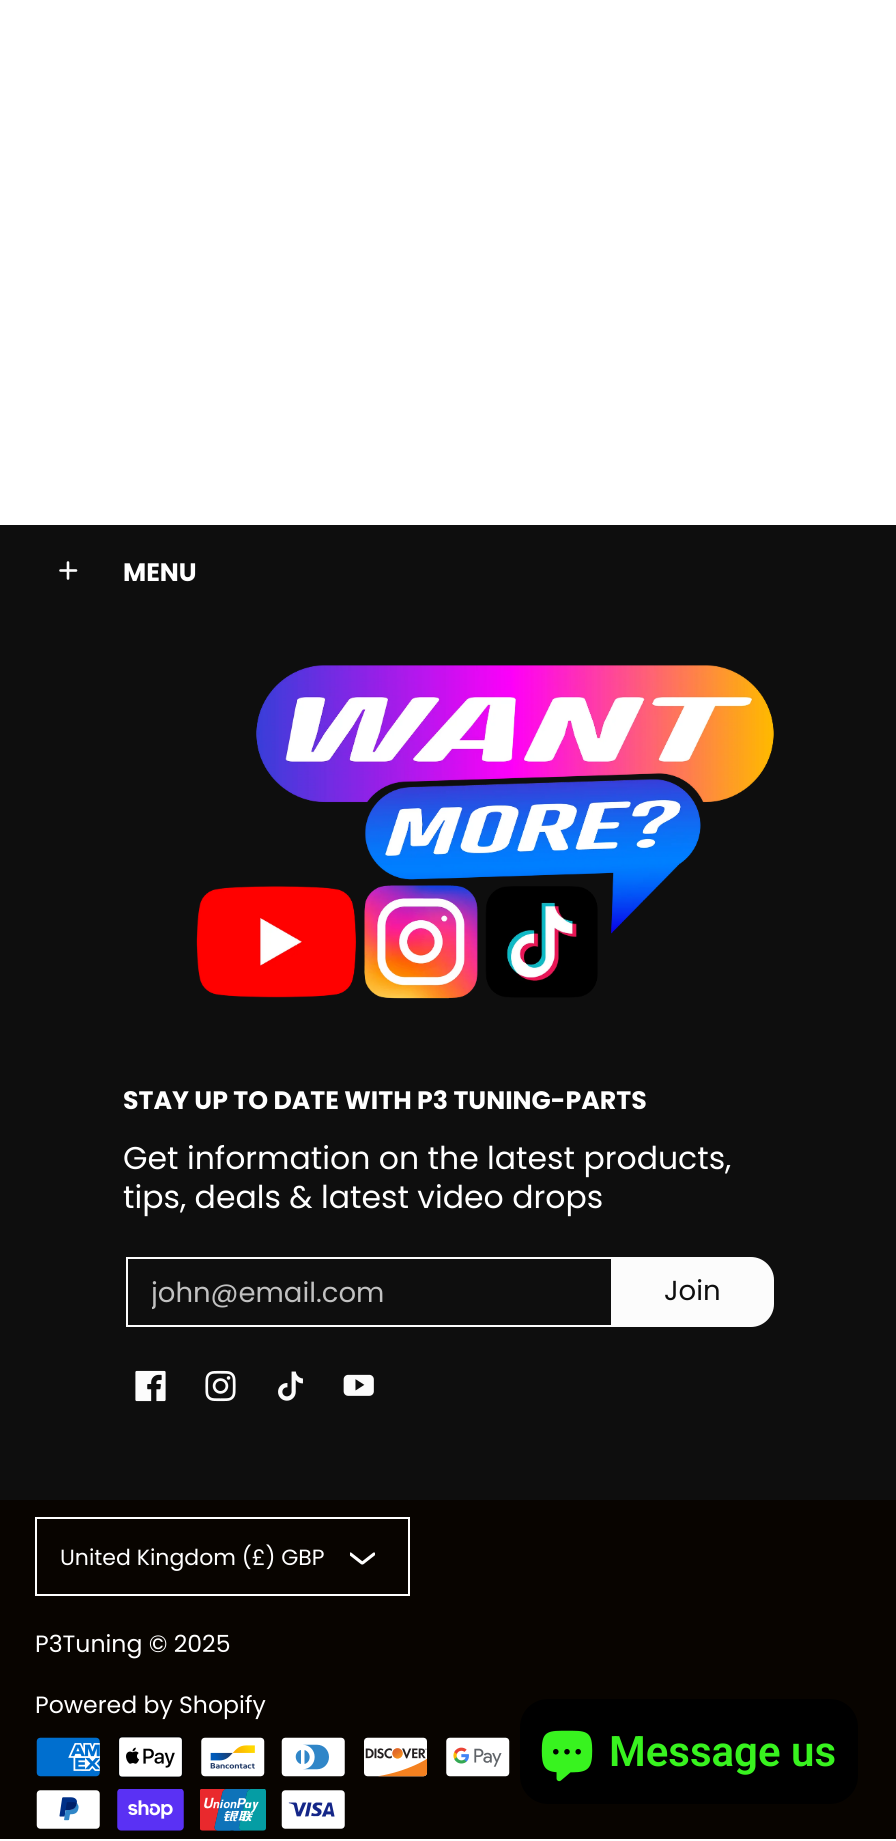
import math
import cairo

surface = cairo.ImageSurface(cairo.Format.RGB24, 896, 1841)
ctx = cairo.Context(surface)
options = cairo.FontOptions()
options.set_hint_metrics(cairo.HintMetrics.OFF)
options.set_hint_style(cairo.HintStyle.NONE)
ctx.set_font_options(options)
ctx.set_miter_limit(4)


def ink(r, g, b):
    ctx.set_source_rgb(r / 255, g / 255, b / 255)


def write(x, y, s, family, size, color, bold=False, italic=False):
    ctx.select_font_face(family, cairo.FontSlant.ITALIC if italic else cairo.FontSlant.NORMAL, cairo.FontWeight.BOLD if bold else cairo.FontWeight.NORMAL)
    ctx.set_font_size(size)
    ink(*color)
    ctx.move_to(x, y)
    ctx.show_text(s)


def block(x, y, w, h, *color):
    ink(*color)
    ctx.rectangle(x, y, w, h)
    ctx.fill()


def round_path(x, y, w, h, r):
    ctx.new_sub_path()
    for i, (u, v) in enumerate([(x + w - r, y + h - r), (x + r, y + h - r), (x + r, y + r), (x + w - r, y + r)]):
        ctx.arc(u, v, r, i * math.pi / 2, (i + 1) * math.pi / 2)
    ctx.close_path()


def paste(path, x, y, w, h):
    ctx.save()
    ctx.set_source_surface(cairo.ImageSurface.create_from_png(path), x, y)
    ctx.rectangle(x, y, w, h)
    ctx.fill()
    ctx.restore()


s1 = dict(family="Poppins", size=25.25, color=(255, 255, 255), bold=True)
s2 = dict(family="Poppins", size=31.5, color=(255, 255, 255))
s3 = dict(family="Poppins", size=27.5, color=(193, 193, 193))
s4 = dict(family="Poppins", size=27.5, color=(14, 14, 14))
s5 = dict(family="Poppins", size=22, color=(255, 255, 255))
s6 = dict(family="Poppins", size=23.6, color=(255, 255, 255))
s7 = dict(family="Roboto SemiBold", size=42, color=(56, 243, 31))

ink(255, 255, 255)
ctx.paint()
block(0, 525, 896, 975, 14, 14, 14)
ctx.new_path()
ctx.move_to(68, 562.5)
ctx.line_to(68, 578.5)
ctx.move_to(76, 570.5)
ctx.line_to(60.5, 570.5)
ink(252, 252, 252)
ctx.set_line_width(2.6)
ctx.set_line_cap(cairo.LineCap.ROUND)
ctx.set_line_join(cairo.LineJoin.ROUND)
ctx.stroke()
write(123, 581, "MENU", **s1)
paste("pic1.png", 196, 665, 578, 334)
write(123, 1109, "STAY UP TO DATE WITH P3 TUNING-PARTS", **s1)
write(123, 1169, "Get information on the latest products,", **s2)
write(123, 1208, "tips, deals & latest video drops", **s2)
ctx.rectangle(127, 1258, 486, 68)
ink(252, 252, 252)
ctx.set_line_width(2)
ctx.set_line_cap(cairo.LineCap.BUTT)
ctx.set_line_join(cairo.LineJoin.MITER)
ctx.stroke()
ctx.save()
ctx.rectangle(152, 1271, 438, 43)
ctx.clip()
write(151, 1302, "john@email.com", **s3)
ctx.restore()
ctx.new_path()
ctx.move_to(612, 1258)
ctx.line_to(751, 1258)
ctx.curve_to(763, 1258, 773, 1268, 773, 1280)
ctx.line_to(773, 1304)
ctx.curve_to(773, 1316, 763, 1326, 751, 1326)
ctx.line_to(612, 1326)
ctx.close_path()
ctx.fill_preserve()
ctx.stroke()
write(664, 1300, "Join", **s4)
paste("pic2.png", 135, 1370, 31, 32)
paste("pic3.png", 205, 1370, 31, 32)
paste("pic4.png", 278, 1371, 25, 30)
paste("pic5.png", 343, 1374, 31, 22)
block(0, 1500, 896, 339, 8, 4, 0)
ctx.rectangle(36, 1518, 373, 77)
ink(255, 255, 255)
ctx.stroke()
write(60, 1565, "United Kingdom (£) GBP", **s5)
ctx.save()
ctx.rectangle(350, 1545, 25, 25)
ctx.clip()
ctx.new_path()
ctx.move_to(350.5, 1554)
ctx.line_to(362, 1563)
ctx.curve_to(362, 1563, 362.5, 1563, 362.5, 1563)
ctx.line_to(374, 1554)
ctx.set_line_width(3.1)
ctx.set_line_cap(cairo.LineCap.ROUND)
ctx.set_line_join(cairo.LineJoin.ROUND)
ctx.stroke()
ctx.restore()
write(35, 1652, "P3Tuning © 2025", **s6)
write(35, 1713, "Powered by Shopify", **s6)
paste("pic6.png", 36, 1737, 64, 40)
paste("pic7.png", 118, 1736, 65, 42)
paste("pic8.png", 201, 1737, 64, 40)
paste("pic9.png", 281, 1737, 64, 40)
paste("pic10.png", 364, 1737, 64, 40)
paste("pic11.png", 446, 1737, 64, 40)
paste("pic12.png", 36, 1790, 64, 39)
paste("pic13.png", 117, 1789, 67, 42)
paste("pic14.png", 200, 1789, 66, 42)
paste("pic15.png", 281, 1790, 64, 39)
ink(0, 0, 0)
round_path(520, 1699, 338, 105, 28)
ctx.fill()
paste("pic16.png", 541, 1730, 52, 52)
write(609, 1766, "Message us", **s7)
surface.write_to_png("screenshot.png")
